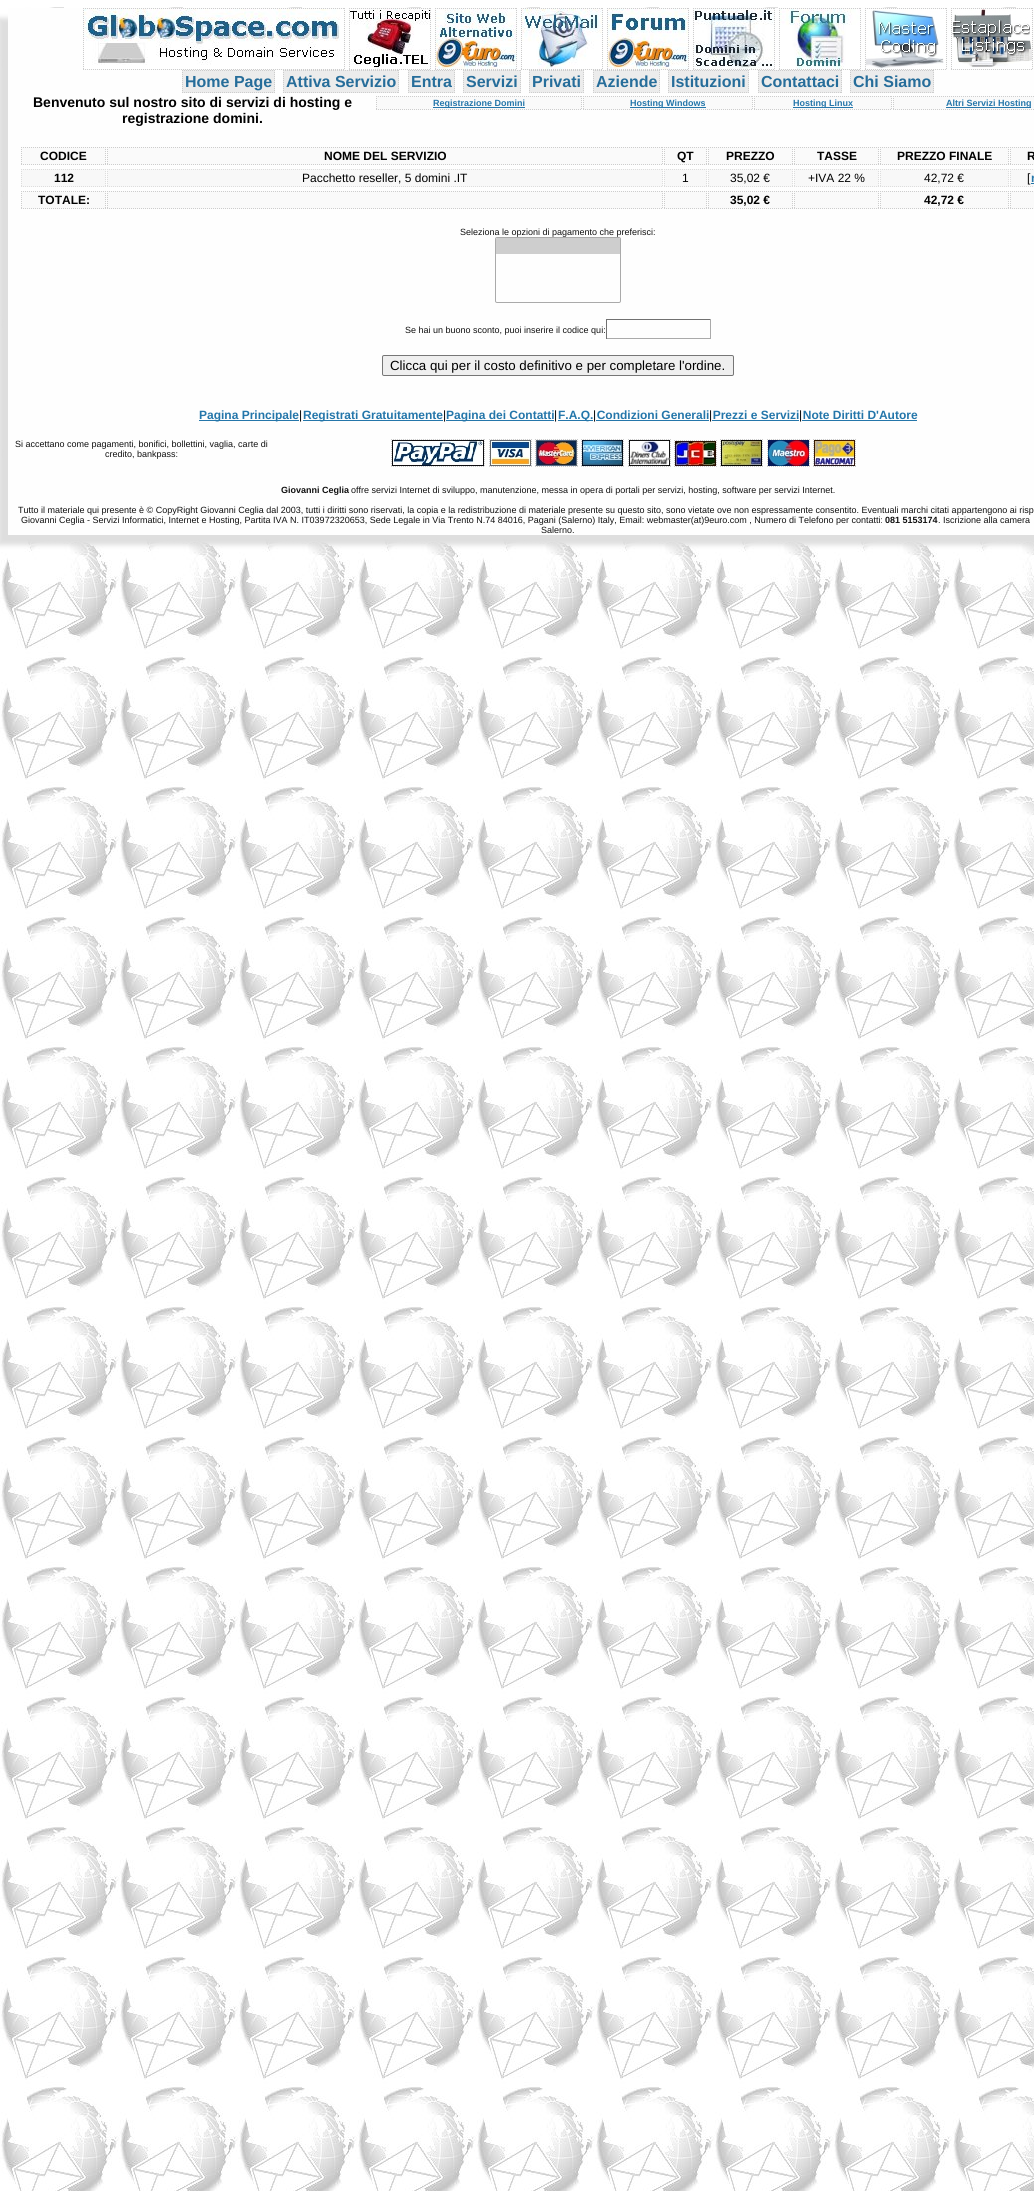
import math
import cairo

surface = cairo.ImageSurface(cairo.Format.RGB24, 1034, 2191)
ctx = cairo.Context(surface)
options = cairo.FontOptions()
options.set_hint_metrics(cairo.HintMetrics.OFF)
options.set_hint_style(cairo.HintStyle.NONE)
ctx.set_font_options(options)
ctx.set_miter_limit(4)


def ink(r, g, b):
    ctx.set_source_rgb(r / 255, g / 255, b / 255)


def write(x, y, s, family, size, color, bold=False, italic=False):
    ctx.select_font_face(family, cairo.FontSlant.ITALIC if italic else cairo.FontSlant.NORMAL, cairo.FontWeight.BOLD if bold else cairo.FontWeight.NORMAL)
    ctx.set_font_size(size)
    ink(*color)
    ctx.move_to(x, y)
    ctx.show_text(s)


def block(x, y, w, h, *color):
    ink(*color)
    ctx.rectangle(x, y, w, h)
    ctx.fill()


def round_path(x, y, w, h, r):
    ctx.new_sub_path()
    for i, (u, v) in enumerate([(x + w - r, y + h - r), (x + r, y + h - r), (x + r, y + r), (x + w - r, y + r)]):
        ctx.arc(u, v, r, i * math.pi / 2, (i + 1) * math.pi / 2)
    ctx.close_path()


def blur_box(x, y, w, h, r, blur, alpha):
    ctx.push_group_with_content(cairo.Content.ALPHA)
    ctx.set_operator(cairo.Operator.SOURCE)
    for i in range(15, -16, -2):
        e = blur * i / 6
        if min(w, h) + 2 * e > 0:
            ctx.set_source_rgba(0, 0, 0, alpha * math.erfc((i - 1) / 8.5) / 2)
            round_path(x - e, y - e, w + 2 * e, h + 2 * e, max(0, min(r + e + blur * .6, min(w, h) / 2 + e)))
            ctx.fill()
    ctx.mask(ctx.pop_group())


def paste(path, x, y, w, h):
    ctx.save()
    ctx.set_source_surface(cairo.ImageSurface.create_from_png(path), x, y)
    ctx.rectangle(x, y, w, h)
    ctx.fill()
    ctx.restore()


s1 = dict(family="Liberation Sans", size=16, color=(38, 109, 154), bold=True)
s2 = dict(family="Liberation Sans", size=14, color=(0, 0, 0), bold=True)
s3 = dict(family="Liberation Sans", size=9, color=(36, 118, 170), bold=True)
s4 = dict(family="Liberation Sans", size=12, color=(0, 0, 0), bold=True)
s5 = dict(family="Liberation Sans", size=12, color=(0, 0, 0))
s6 = dict(family="Liberation Sans", size=12, color=(36, 118, 170), bold=True)
s7 = dict(family="Liberation Sans", size=9, color=(16, 16, 16))
s8 = dict(family="Liberation Sans", size=13.3, color=(0, 0, 0))
s9 = dict(family="Liberation Sans", size=9, color=(16, 16, 16), bold=True)

ink(255, 255, 255)
ctx.paint()
paste("pic1.png", 0, 7, 1034, 2184)
ink(222, 222, 222)
blur_box(-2, 18, 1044, 527, 0, 2.5, 1)
block(8, 8, 1026, 527, 254, 254, 254)
block(83, 8, 262, 62, 250, 250, 250)
ctx.new_path()
ctx.move_to(83, 8.5)
ctx.line_to(345, 8.5)
ink(205, 205, 205)
ctx.set_line_width(1)
ctx.set_dash([1, 1])
ctx.stroke()
ctx.new_path()
ctx.move_to(83.5, 8)
ctx.line_to(83.5, 70)
ctx.stroke()
ctx.new_path()
ctx.move_to(344.5, 8)
ctx.line_to(344.5, 70)
ctx.stroke()
block(349, 8, 82, 62, 250, 250, 250)
ctx.new_path()
ctx.move_to(349, 8.5)
ctx.line_to(431, 8.5)
ink(205, 205, 205)
ctx.stroke()
ctx.new_path()
ctx.move_to(349.5, 8)
ctx.line_to(349.5, 70)
ctx.stroke()
ctx.new_path()
ctx.move_to(430.5, 8)
ctx.line_to(430.5, 70)
ctx.stroke()
block(435, 8, 82, 62, 250, 250, 250)
ctx.new_path()
ctx.move_to(435, 8.5)
ctx.line_to(517, 8.5)
ink(205, 205, 205)
ctx.stroke()
ctx.new_path()
ctx.move_to(435.5, 8)
ctx.line_to(435.5, 70)
ctx.stroke()
ctx.new_path()
ctx.move_to(516.5, 8)
ctx.line_to(516.5, 70)
ctx.stroke()
block(521, 8, 82, 62, 250, 250, 250)
ctx.new_path()
ctx.move_to(521, 8.5)
ctx.line_to(603, 8.5)
ink(205, 205, 205)
ctx.stroke()
ctx.new_path()
ctx.move_to(521.5, 8)
ctx.line_to(521.5, 70)
ctx.stroke()
ctx.new_path()
ctx.move_to(602.5, 8)
ctx.line_to(602.5, 70)
ctx.stroke()
block(607, 8, 82, 62, 250, 250, 250)
ctx.new_path()
ctx.move_to(607, 8.5)
ctx.line_to(689, 8.5)
ink(205, 205, 205)
ctx.stroke()
ctx.new_path()
ctx.move_to(607.5, 8)
ctx.line_to(607.5, 70)
ctx.stroke()
ctx.new_path()
ctx.move_to(688.5, 8)
ctx.line_to(688.5, 70)
ctx.stroke()
block(693, 8, 82, 62, 250, 250, 250)
ctx.new_path()
ctx.move_to(693, 8.5)
ctx.line_to(775, 8.5)
ink(205, 205, 205)
ctx.stroke()
ctx.new_path()
ctx.move_to(693.5, 8)
ctx.line_to(693.5, 70)
ctx.stroke()
ctx.new_path()
ctx.move_to(774.5, 8)
ctx.line_to(774.5, 70)
ctx.stroke()
block(779, 8, 82, 62, 250, 250, 250)
ctx.new_path()
ctx.move_to(779, 8.5)
ctx.line_to(861, 8.5)
ink(205, 205, 205)
ctx.stroke()
ctx.new_path()
ctx.move_to(779.5, 8)
ctx.line_to(779.5, 70)
ctx.stroke()
ctx.new_path()
ctx.move_to(860.5, 8)
ctx.line_to(860.5, 70)
ctx.stroke()
block(865, 8, 82, 62, 250, 250, 250)
ctx.new_path()
ctx.move_to(865, 8.5)
ctx.line_to(947, 8.5)
ink(205, 205, 205)
ctx.stroke()
ctx.new_path()
ctx.move_to(865.5, 8)
ctx.line_to(865.5, 70)
ctx.stroke()
ctx.new_path()
ctx.move_to(946.5, 8)
ctx.line_to(946.5, 70)
ctx.stroke()
block(951, 8, 82, 62, 250, 250, 250)
ctx.new_path()
ctx.move_to(951, 8.5)
ctx.line_to(1033, 8.5)
ink(205, 205, 205)
ctx.stroke()
paste("pic2.png", 84, 9, 260, 60)
paste("pic3.png", 350, 9, 80, 60)
paste("pic4.png", 436, 9, 80, 60)
paste("pic5.png", 522, 9, 80, 60)
paste("pic6.png", 608, 9, 80, 60)
paste("pic7.png", 694, 9, 80, 60)
paste("pic8.png", 780, 9, 80, 60)
paste("pic9.png", 866, 9, 80, 60)
ctx.new_path()
ctx.move_to(951.5, 8)
ctx.line_to(951.5, 70)
ctx.stroke()
paste("pic10.png", 952, 9, 80, 60)
ctx.new_path()
ctx.move_to(1032.5, 8)
ctx.line_to(1032.5, 70)
ctx.stroke()
ctx.new_path()
ctx.move_to(83, 69.5)
ctx.line_to(345, 69.5)
ctx.stroke()
ctx.new_path()
ctx.move_to(349, 69.5)
ctx.line_to(431, 69.5)
ctx.stroke()
ctx.new_path()
ctx.move_to(435, 69.5)
ctx.line_to(517, 69.5)
ctx.stroke()
ctx.new_path()
ctx.move_to(521, 69.5)
ctx.line_to(603, 69.5)
ctx.stroke()
ctx.new_path()
ctx.move_to(607, 69.5)
ctx.line_to(689, 69.5)
ctx.stroke()
ctx.new_path()
ctx.move_to(693, 69.5)
ctx.line_to(775, 69.5)
ctx.stroke()
ctx.new_path()
ctx.move_to(779, 69.5)
ctx.line_to(861, 69.5)
ctx.stroke()
ctx.new_path()
ctx.move_to(865, 69.5)
ctx.line_to(947, 69.5)
ctx.stroke()
ctx.new_path()
ctx.move_to(951, 69.5)
ctx.line_to(1033, 69.5)
ctx.stroke()
block(182, 70, 93, 23, 236, 236, 236)
write(185, 87, "Home Page", **s1)
ctx.new_path()
ctx.move_to(182, 70.5)
ctx.line_to(275, 70.5)
ink(205, 205, 205)
ctx.stroke()
ctx.new_path()
ctx.move_to(274.5, 70)
ctx.line_to(274.5, 93)
ctx.stroke()
ctx.new_path()
ctx.move_to(182, 92.5)
ctx.line_to(275, 92.5)
ctx.stroke()
ctx.new_path()
ctx.move_to(182.5, 70)
ctx.line_to(182.5, 93)
ctx.stroke()
block(283, 70, 116, 23, 236, 236, 236)
write(286, 87, "Attiva Servizio", **s1)
ctx.new_path()
ctx.move_to(283, 70.5)
ctx.line_to(399, 70.5)
ink(205, 205, 205)
ctx.stroke()
ctx.new_path()
ctx.move_to(398.5, 70)
ctx.line_to(398.5, 93)
ctx.stroke()
ctx.new_path()
ctx.move_to(283, 92.5)
ctx.line_to(399, 92.5)
ctx.stroke()
ctx.new_path()
ctx.move_to(283.5, 70)
ctx.line_to(283.5, 93)
ctx.stroke()
block(408, 70, 47, 23, 236, 236, 236)
ctx.new_path()
ctx.move_to(408, 70.5)
ctx.line_to(455, 70.5)
ctx.move_to(454.5, 70)
ctx.line_to(454.5, 93)
ctx.move_to(408, 92.5)
ctx.line_to(455, 92.5)
ctx.move_to(408.5, 70)
ctx.line_to(408.5, 93)
ink(205, 205, 205)
ctx.stroke()
write(411, 87, "Entra", **s1)
block(463, 70, 58, 23, 236, 236, 236)
ctx.new_path()
ctx.move_to(463, 70.5)
ctx.line_to(521, 70.5)
ctx.move_to(520.5, 70)
ctx.line_to(520.5, 93)
ctx.move_to(463, 92.5)
ctx.line_to(521, 92.5)
ctx.move_to(463.5, 70)
ctx.line_to(463.5, 93)
ink(205, 205, 205)
ctx.stroke()
write(466, 87, "Servizi", **s1)
block(529, 70, 55, 23, 236, 236, 236)
ctx.new_path()
ctx.move_to(529, 70.5)
ctx.line_to(584, 70.5)
ctx.move_to(583.5, 70)
ctx.line_to(583.5, 93)
ctx.move_to(529, 92.5)
ctx.line_to(584, 92.5)
ctx.move_to(529.5, 70)
ctx.line_to(529.5, 93)
ink(205, 205, 205)
ctx.stroke()
write(532, 87, "Privati", **s1)
block(593, 70, 67, 23, 236, 236, 236)
write(596, 87, "Aziende", **s1)
ctx.new_path()
ctx.move_to(593, 70.5)
ctx.line_to(660, 70.5)
ink(205, 205, 205)
ctx.stroke()
ctx.new_path()
ctx.move_to(659.5, 70)
ctx.line_to(659.5, 93)
ctx.stroke()
ctx.new_path()
ctx.move_to(593, 92.5)
ctx.line_to(660, 92.5)
ctx.stroke()
ctx.new_path()
ctx.move_to(593.5, 70)
ctx.line_to(593.5, 93)
ctx.stroke()
block(668, 70, 81, 23, 236, 236, 236)
write(671, 87, "Istituzioni", **s1)
ctx.new_path()
ctx.move_to(668, 70.5)
ctx.line_to(749, 70.5)
ink(205, 205, 205)
ctx.stroke()
ctx.new_path()
ctx.move_to(748.5, 70)
ctx.line_to(748.5, 93)
ctx.stroke()
ctx.new_path()
ctx.move_to(668, 92.5)
ctx.line_to(749, 92.5)
ctx.stroke()
ctx.new_path()
ctx.move_to(668.5, 70)
ctx.line_to(668.5, 93)
ctx.stroke()
block(758, 70, 84, 23, 236, 236, 236)
write(761, 87, "Contattaci", **s1)
ctx.new_path()
ctx.move_to(758, 70.5)
ctx.line_to(842, 70.5)
ink(205, 205, 205)
ctx.stroke()
ctx.new_path()
ctx.move_to(841.5, 70)
ctx.line_to(841.5, 93)
ctx.stroke()
ctx.new_path()
ctx.move_to(758, 92.5)
ctx.line_to(842, 92.5)
ctx.stroke()
ctx.new_path()
ctx.move_to(758.5, 70)
ctx.line_to(758.5, 93)
ctx.stroke()
block(850, 70, 84, 23, 236, 236, 236)
write(853, 87, "Chi Siamo", **s1)
ctx.new_path()
ctx.move_to(850, 70.5)
ctx.line_to(934, 70.5)
ink(205, 205, 205)
ctx.stroke()
ctx.new_path()
ctx.move_to(933.5, 70)
ctx.line_to(933.5, 93)
ctx.stroke()
ctx.new_path()
ctx.move_to(850, 92.5)
ctx.line_to(934, 92.5)
ctx.stroke()
ctx.new_path()
ctx.move_to(850.5, 70)
ctx.line_to(850.5, 93)
ctx.stroke()
write(33, 107, "Benvenuto sul nostro sito di servizi di hosting e", **s2)
write(122, 123, "registrazione domini.", **s2)
block(376, 96, 206, 14, 250, 250, 250)
ctx.new_path()
ctx.move_to(376, 96.5)
ctx.line_to(582, 96.5)
ink(205, 205, 205)
ctx.stroke()
ctx.new_path()
ctx.move_to(581.5, 96)
ctx.line_to(581.5, 110)
ctx.stroke()
ctx.new_path()
ctx.move_to(376, 109.5)
ctx.line_to(582, 109.5)
ctx.stroke()
ctx.new_path()
ctx.move_to(376.5, 96)
ctx.line_to(376.5, 110)
ctx.stroke()
block(433, 107, 92, 1, 36, 118, 170)
write(433, 106, "Registrazione Domini", **s3)
block(583, 96, 170, 14, 250, 250, 250)
ctx.new_path()
ctx.move_to(583, 96.5)
ctx.line_to(753, 96.5)
ink(205, 205, 205)
ctx.stroke()
ctx.new_path()
ctx.move_to(752.5, 96)
ctx.line_to(752.5, 110)
ctx.stroke()
ctx.new_path()
ctx.move_to(583, 109.5)
ctx.line_to(753, 109.5)
ctx.stroke()
ctx.new_path()
ctx.move_to(583.5, 96)
ctx.line_to(583.5, 110)
ctx.stroke()
block(630, 107, 76, 1, 36, 118, 170)
write(630, 106, "Hosting Windows", **s3)
block(754, 96, 138, 14, 250, 250, 250)
ctx.new_path()
ctx.move_to(754, 96.5)
ctx.line_to(892, 96.5)
ink(205, 205, 205)
ctx.stroke()
ctx.new_path()
ctx.move_to(891.5, 96)
ctx.line_to(891.5, 110)
ctx.stroke()
ctx.new_path()
ctx.move_to(754, 109.5)
ctx.line_to(892, 109.5)
ctx.stroke()
ctx.new_path()
ctx.move_to(754.5, 96)
ctx.line_to(754.5, 110)
ctx.stroke()
block(793, 107, 60, 1, 36, 118, 170)
write(793, 106, "Hosting Linux", **s3)
block(893, 96, 141, 14, 250, 250, 250)
ctx.new_path()
ctx.move_to(893, 96.5)
ctx.line_to(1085, 96.5)
ink(205, 205, 205)
ctx.stroke()
ctx.new_path()
ctx.move_to(893, 109.5)
ctx.line_to(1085, 109.5)
ctx.stroke()
ctx.new_path()
ctx.move_to(893.5, 96)
ctx.line_to(893.5, 110)
ctx.stroke()
block(946, 107, 85, 1, 36, 118, 170)
write(946, 106, "Altri Servizi Hosting", **s3)
block(21, 147, 85, 18, 250, 250, 250)
ctx.new_path()
ctx.move_to(21, 147.5)
ctx.line_to(106, 147.5)
ink(205, 205, 205)
ctx.stroke()
ctx.new_path()
ctx.move_to(105.5, 147)
ctx.line_to(105.5, 165)
ctx.stroke()
ctx.new_path()
ctx.move_to(21, 164.5)
ctx.line_to(106, 164.5)
ctx.stroke()
ctx.new_path()
ctx.move_to(21.5, 147)
ctx.line_to(21.5, 165)
ctx.stroke()
write(40, 160, "CODICE", **s4)
block(107, 147, 556, 18, 250, 250, 250)
ctx.new_path()
ctx.move_to(107, 147.5)
ctx.line_to(663, 147.5)
ink(205, 205, 205)
ctx.stroke()
ctx.new_path()
ctx.move_to(662.5, 147)
ctx.line_to(662.5, 165)
ctx.stroke()
ctx.new_path()
ctx.move_to(107, 164.5)
ctx.line_to(663, 164.5)
ctx.stroke()
ctx.new_path()
ctx.move_to(107.5, 147)
ctx.line_to(107.5, 165)
ctx.stroke()
write(324, 160, "NOME DEL SERVIZIO", **s4)
block(664, 147, 43, 18, 250, 250, 250)
ctx.new_path()
ctx.move_to(664, 147.5)
ctx.line_to(707, 147.5)
ctx.move_to(706.5, 147)
ctx.line_to(706.5, 165)
ctx.move_to(664, 164.5)
ctx.line_to(707, 164.5)
ctx.move_to(664.5, 147)
ctx.line_to(664.5, 165)
ink(205, 205, 205)
ctx.stroke()
write(677, 160, "QT", **s4)
block(708, 147, 85, 18, 250, 250, 250)
ctx.new_path()
ctx.move_to(708, 147.5)
ctx.line_to(793, 147.5)
ink(205, 205, 205)
ctx.stroke()
ctx.new_path()
ctx.move_to(792.5, 147)
ctx.line_to(792.5, 165)
ctx.stroke()
ctx.new_path()
ctx.move_to(708, 164.5)
ctx.line_to(793, 164.5)
ctx.stroke()
ctx.new_path()
ctx.move_to(708.5, 147)
ctx.line_to(708.5, 165)
ctx.stroke()
write(726, 160, "PREZZO", **s4)
block(794, 147, 85, 18, 250, 250, 250)
ctx.new_path()
ctx.move_to(794, 147.5)
ctx.line_to(879, 147.5)
ink(205, 205, 205)
ctx.stroke()
ctx.new_path()
ctx.move_to(878.5, 147)
ctx.line_to(878.5, 165)
ctx.stroke()
ctx.new_path()
ctx.move_to(794, 164.5)
ctx.line_to(879, 164.5)
ctx.stroke()
ctx.new_path()
ctx.move_to(794.5, 147)
ctx.line_to(794.5, 165)
ctx.stroke()
write(817, 160, "TASSE", **s4)
block(880, 147, 129, 18, 250, 250, 250)
ctx.new_path()
ctx.move_to(880, 147.5)
ctx.line_to(1009, 147.5)
ink(205, 205, 205)
ctx.stroke()
ctx.new_path()
ctx.move_to(1008.5, 147)
ctx.line_to(1008.5, 165)
ctx.stroke()
ctx.new_path()
ctx.move_to(880, 164.5)
ctx.line_to(1009, 164.5)
ctx.stroke()
ctx.new_path()
ctx.move_to(880.5, 147)
ctx.line_to(880.5, 165)
ctx.stroke()
write(897, 160, "PREZZO FINALE", **s4)
block(1010, 147, 24, 18, 250, 250, 250)
ctx.new_path()
ctx.move_to(1010, 147.5)
ctx.line_to(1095, 147.5)
ctx.move_to(1010, 164.5)
ctx.line_to(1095, 164.5)
ctx.move_to(1010.5, 147)
ctx.line_to(1010.5, 165)
ink(205, 205, 205)
ctx.stroke()
write(1027, 160, "R", **s4)
block(21, 169, 85, 18, 248, 248, 248)
ctx.new_path()
ctx.move_to(21, 169.5)
ctx.line_to(106, 169.5)
ink(221, 221, 221)
ctx.stroke()
ctx.new_path()
ctx.move_to(105.5, 169)
ctx.line_to(105.5, 187)
ctx.stroke()
ctx.new_path()
ctx.move_to(21, 186.5)
ctx.line_to(106, 186.5)
ctx.stroke()
ctx.new_path()
ctx.move_to(21.5, 169)
ctx.line_to(21.5, 187)
ctx.stroke()
write(54, 182, "112", **s4)
block(107, 169, 556, 18, 248, 248, 248)
ctx.new_path()
ctx.move_to(107, 169.5)
ctx.line_to(663, 169.5)
ink(221, 221, 221)
ctx.stroke()
ctx.new_path()
ctx.move_to(662.5, 169)
ctx.line_to(662.5, 187)
ctx.stroke()
ctx.new_path()
ctx.move_to(107, 186.5)
ctx.line_to(663, 186.5)
ctx.stroke()
ctx.new_path()
ctx.move_to(107.5, 169)
ctx.line_to(107.5, 187)
ctx.stroke()
write(302, 182, "Pacchetto reseller, 5 domini .IT", **s5)
block(664, 169, 43, 18, 248, 248, 248)
ctx.new_path()
ctx.move_to(664, 169.5)
ctx.line_to(707, 169.5)
ctx.move_to(706.5, 169)
ctx.line_to(706.5, 187)
ctx.move_to(664, 186.5)
ctx.line_to(707, 186.5)
ctx.move_to(664.5, 169)
ctx.line_to(664.5, 187)
ink(221, 221, 221)
ctx.stroke()
write(682, 182, "1", **s5)
block(708, 169, 85, 18, 248, 248, 248)
ctx.new_path()
ctx.move_to(708, 169.5)
ctx.line_to(793, 169.5)
ink(221, 221, 221)
ctx.stroke()
ctx.new_path()
ctx.move_to(792.5, 169)
ctx.line_to(792.5, 187)
ctx.stroke()
ctx.new_path()
ctx.move_to(708, 186.5)
ctx.line_to(793, 186.5)
ctx.stroke()
ctx.new_path()
ctx.move_to(708.5, 169)
ctx.line_to(708.5, 187)
ctx.stroke()
write(730, 182, "35,02 €", **s5)
block(794, 169, 85, 18, 248, 248, 248)
ctx.new_path()
ctx.move_to(794, 169.5)
ctx.line_to(879, 169.5)
ink(221, 221, 221)
ctx.stroke()
ctx.new_path()
ctx.move_to(878.5, 169)
ctx.line_to(878.5, 187)
ctx.stroke()
ctx.new_path()
ctx.move_to(794, 186.5)
ctx.line_to(879, 186.5)
ctx.stroke()
ctx.new_path()
ctx.move_to(794.5, 169)
ctx.line_to(794.5, 187)
ctx.stroke()
write(808, 182, "+IVA 22 %", **s5)
block(880, 169, 129, 18, 248, 248, 248)
ctx.new_path()
ctx.move_to(880, 169.5)
ctx.line_to(1009, 169.5)
ink(221, 221, 221)
ctx.stroke()
ctx.new_path()
ctx.move_to(1008.5, 169)
ctx.line_to(1008.5, 187)
ctx.stroke()
ctx.new_path()
ctx.move_to(880, 186.5)
ctx.line_to(1009, 186.5)
ctx.stroke()
ctx.new_path()
ctx.move_to(880.5, 169)
ctx.line_to(880.5, 187)
ctx.stroke()
write(924, 182, "42,72 €", **s5)
block(1010, 169, 24, 18, 248, 248, 248)
ctx.new_path()
ctx.move_to(1010, 169.5)
ctx.line_to(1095, 169.5)
ctx.move_to(1010, 186.5)
ctx.line_to(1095, 186.5)
ctx.move_to(1010.5, 169)
ctx.line_to(1010.5, 187)
ink(221, 221, 221)
ctx.stroke()
write(1027, 182, "[", **s5)
write(1031, 182, "r", **s6)
block(1031, 183, 3, 1, 36, 118, 170)
block(21, 191, 85, 18, 250, 250, 250)
ctx.new_path()
ctx.move_to(21, 191.5)
ctx.line_to(106, 191.5)
ink(205, 205, 205)
ctx.stroke()
ctx.new_path()
ctx.move_to(105.5, 191)
ctx.line_to(105.5, 209)
ctx.stroke()
ctx.new_path()
ctx.move_to(21, 208.5)
ctx.line_to(106, 208.5)
ctx.stroke()
ctx.new_path()
ctx.move_to(21.5, 191)
ctx.line_to(21.5, 209)
ctx.stroke()
write(38, 204, "TOTALE:", **s4)
block(107, 191, 556, 18, 250, 250, 250)
ctx.new_path()
ctx.move_to(107, 191.5)
ctx.line_to(663, 191.5)
ink(205, 205, 205)
ctx.stroke()
ctx.new_path()
ctx.move_to(662.5, 191)
ctx.line_to(662.5, 209)
ctx.stroke()
ctx.new_path()
ctx.move_to(107, 208.5)
ctx.line_to(663, 208.5)
ctx.stroke()
ctx.new_path()
ctx.move_to(107.5, 191)
ctx.line_to(107.5, 209)
ctx.stroke()
block(664, 191, 43, 18, 250, 250, 250)
ctx.new_path()
ctx.move_to(664, 191.5)
ctx.line_to(707, 191.5)
ctx.move_to(706.5, 191)
ctx.line_to(706.5, 209)
ctx.move_to(664, 208.5)
ctx.line_to(707, 208.5)
ctx.move_to(664.5, 191)
ctx.line_to(664.5, 209)
ink(205, 205, 205)
ctx.stroke()
block(708, 191, 85, 18, 250, 250, 250)
ctx.new_path()
ctx.move_to(708, 191.5)
ctx.line_to(793, 191.5)
ink(205, 205, 205)
ctx.stroke()
ctx.new_path()
ctx.move_to(792.5, 191)
ctx.line_to(792.5, 209)
ctx.stroke()
ctx.new_path()
ctx.move_to(708, 208.5)
ctx.line_to(793, 208.5)
ctx.stroke()
ctx.new_path()
ctx.move_to(708.5, 191)
ctx.line_to(708.5, 209)
ctx.stroke()
write(730, 204, "35,02 €", **s4)
block(794, 191, 85, 18, 250, 250, 250)
ctx.new_path()
ctx.move_to(794, 191.5)
ctx.line_to(879, 191.5)
ink(205, 205, 205)
ctx.stroke()
ctx.new_path()
ctx.move_to(878.5, 191)
ctx.line_to(878.5, 209)
ctx.stroke()
ctx.new_path()
ctx.move_to(794, 208.5)
ctx.line_to(879, 208.5)
ctx.stroke()
ctx.new_path()
ctx.move_to(794.5, 191)
ctx.line_to(794.5, 209)
ctx.stroke()
block(880, 191, 129, 18, 250, 250, 250)
ctx.new_path()
ctx.move_to(880, 191.5)
ctx.line_to(1009, 191.5)
ink(205, 205, 205)
ctx.stroke()
ctx.new_path()
ctx.move_to(1008.5, 191)
ctx.line_to(1008.5, 209)
ctx.stroke()
ctx.new_path()
ctx.move_to(880, 208.5)
ctx.line_to(1009, 208.5)
ctx.stroke()
ctx.new_path()
ctx.move_to(880.5, 191)
ctx.line_to(880.5, 209)
ctx.stroke()
write(924, 204, "42,72 €", **s4)
block(1010, 191, 24, 18, 250, 250, 250)
ctx.new_path()
ctx.move_to(1010, 191.5)
ctx.line_to(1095, 191.5)
ctx.move_to(1010, 208.5)
ctx.line_to(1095, 208.5)
ctx.move_to(1010.5, 191)
ctx.line_to(1010.5, 209)
ink(205, 205, 205)
ctx.stroke()
write(460, 235, "Seleziona le opzioni di pagamento che preferisci:", **s7)
round_path(495.5, 237.5, 125, 65, 1.5)
ink(170, 170, 170)
ctx.set_dash([])
ctx.stroke()
ink(206, 206, 206)
ctx.new_path()
ctx.move_to(497, 238)
ctx.line_to(619, 238)
ctx.curve_to(619.5, 238, 620, 238.5, 620, 239)
ctx.line_to(620, 254)
ctx.line_to(496, 254)
ctx.line_to(496, 239)
ctx.curve_to(496, 238.5, 496.5, 238, 497, 238)
ctx.close_path()
ctx.fill()
write(405, 333, "Se hai un buono sconto, puoi inserire il codice qui:", **s7)
block(606, 319, 105, 1, 113, 113, 113)
block(710, 319, 1, 20, 170, 170, 170)
block(606, 338, 105, 1, 170, 170, 170)
block(606, 319, 1, 20, 113, 113, 113)
ink(239, 239, 239)
round_path(382.5, 355.5, 351, 20, 1.5)
ctx.fill_preserve()
ink(118, 118, 118)
ctx.stroke()
write(390, 370, "Clicca qui per il costo definitivo e per completare l'ordine.", **s8)
block(199, 420, 100, 1, 36, 118, 170)
write(199, 419, "Pagina Principale", **s6)
write(299, 419, "|", **s5)
block(303, 420, 140, 1, 36, 118, 170)
write(303, 419, "Registrati Gratuitamente", **s6)
write(443, 419, "|", **s5)
block(446, 420, 108, 1, 36, 118, 170)
write(446, 419, "Pagina dei Contatti", **s6)
write(554, 419, "|", **s5)
block(558, 420, 35, 1, 36, 118, 170)
write(558, 419, "F.A.Q. Condizioni Generali Prezzi e Servizi Note Diritti D'Autore", **s6)
write(593, 419, "|", **s5)
block(596, 420, 113, 1, 36, 118, 170)
write(709, 419, "|", **s5)
block(712, 420, 87, 1, 36, 118, 170)
write(799, 419, "|", **s5)
block(802, 420, 115, 1, 36, 118, 170)
write(15, 447, "Si accettano come pagamenti, bonifici, bollettini, vaglia, carte di", **s7)
write(105, 457, "credito, bankpass:", **s7)
block(391, 439, 94, 28, 250, 250, 250)
ctx.new_path()
ctx.move_to(391, 439.5)
ctx.line_to(485, 439.5)
ink(205, 205, 205)
ctx.set_dash([1, 1])
ctx.stroke()
ctx.new_path()
ctx.move_to(391.5, 439)
ctx.line_to(391.5, 467)
ctx.stroke()
ctx.new_path()
ctx.move_to(484.5, 439)
ctx.line_to(484.5, 467)
ctx.stroke()
block(489, 439, 43, 28, 250, 250, 250)
ctx.new_path()
ctx.move_to(489, 439.5)
ctx.line_to(532, 439.5)
ctx.move_to(531.5, 439)
ctx.line_to(531.5, 467)
ctx.move_to(489, 466.5)
ctx.line_to(532, 466.5)
ctx.move_to(489.5, 439)
ctx.line_to(489.5, 467)
ink(205, 205, 205)
ctx.stroke()
block(535, 439, 43, 28, 250, 250, 250)
ctx.new_path()
ctx.move_to(535, 439.5)
ctx.line_to(578, 439.5)
ctx.move_to(577.5, 439)
ctx.line_to(577.5, 467)
ctx.move_to(535, 466.5)
ctx.line_to(578, 466.5)
ctx.move_to(535.5, 439)
ctx.line_to(535.5, 467)
ink(205, 205, 205)
ctx.stroke()
block(581, 439, 43, 28, 250, 250, 250)
ctx.new_path()
ctx.move_to(581, 439.5)
ctx.line_to(624, 439.5)
ctx.move_to(623.5, 439)
ctx.line_to(623.5, 467)
ctx.move_to(581, 466.5)
ctx.line_to(624, 466.5)
ctx.move_to(581.5, 439)
ctx.line_to(581.5, 467)
ink(205, 205, 205)
ctx.stroke()
block(628, 439, 43, 28, 250, 250, 250)
ctx.new_path()
ctx.move_to(628, 439.5)
ctx.line_to(671, 439.5)
ctx.move_to(670.5, 439)
ctx.line_to(670.5, 467)
ctx.move_to(628, 466.5)
ctx.line_to(671, 466.5)
ctx.move_to(628.5, 439)
ctx.line_to(628.5, 467)
ink(205, 205, 205)
ctx.stroke()
block(720, 439, 43, 28, 250, 250, 250)
ctx.new_path()
ctx.move_to(720, 439.5)
ctx.line_to(763, 439.5)
ctx.move_to(762.5, 439)
ctx.line_to(762.5, 467)
ctx.move_to(720, 466.5)
ctx.line_to(763, 466.5)
ctx.move_to(720.5, 439)
ctx.line_to(720.5, 467)
ink(205, 205, 205)
ctx.stroke()
block(767, 439, 43, 28, 250, 250, 250)
ctx.new_path()
ctx.move_to(767, 439.5)
ctx.line_to(810, 439.5)
ctx.move_to(809.5, 439)
ctx.line_to(809.5, 467)
ctx.move_to(767, 466.5)
ctx.line_to(810, 466.5)
ctx.move_to(767.5, 439)
ctx.line_to(767.5, 467)
ink(205, 205, 205)
ctx.stroke()
block(813, 439, 43, 28, 250, 250, 250)
paste("pic11.png", 392, 440, 92, 26)
paste("pic12.png", 490, 440, 41, 26)
paste("pic13.png", 536, 440, 41, 26)
paste("pic14.png", 582, 440, 41, 26)
paste("pic15.png", 629, 440, 41, 26)
block(674, 440, 43, 27, 250, 250, 250)
ctx.new_path()
ctx.move_to(813, 439.5)
ctx.line_to(856, 439.5)
ctx.move_to(855.5, 439)
ctx.line_to(855.5, 467)
ctx.move_to(813, 466.5)
ctx.line_to(856, 466.5)
ctx.move_to(813.5, 439)
ctx.line_to(813.5, 467)
ink(205, 205, 205)
ctx.stroke()
ctx.new_path()
ctx.move_to(674, 440.5)
ctx.line_to(717, 440.5)
ctx.move_to(716.5, 440)
ctx.line_to(716.5, 467)
ctx.move_to(674, 466.5)
ctx.line_to(717, 466.5)
ctx.move_to(674.5, 440)
ctx.line_to(674.5, 467)
ctx.stroke()
paste("pic16.png", 721, 440, 41, 26)
paste("pic17.png", 768, 440, 41, 26)
paste("pic18.png", 814, 440, 41, 26)
paste("pic19.png", 675, 441, 41, 25)
ctx.new_path()
ctx.move_to(391, 466.5)
ctx.line_to(485, 466.5)
ctx.stroke()
write(281, 493, "Giovanni Ceglia", **s9)
write(351, 493, "offre servizi Internet di sviluppo, manutenzione, messa in opera di portali per servizi, hosting, software per servizi Internet.", **s7)
write(18, 513, "Tutto il materiale qui presente è © CopyRight Giovanni Ceglia dal 2003, tutti i diritti sono riservati, la copia e la redistribuzione di materiale presente su questo sito, sono vietate ove non espressamente consentito. Eventuali marchi citati appartengono ai risp", **s7)
write(21, 523, "Giovanni Ceglia - Servizi Informatici, Internet e Hosting, Partita IVA N. IT03972320653, Sede Legale in Via Trento N.74 84016, Pagani (Salerno) Italy, Email: webmaster(at)9euro.com , Numero di Telefono per contatti:", **s7)
write(885, 523, "081 5153174", **s9)
write(938, 523, ". Iscrizione alla camera", **s7)
write(541, 533, "Salerno.", **s7)
surface.write_to_png("screenshot.png")
